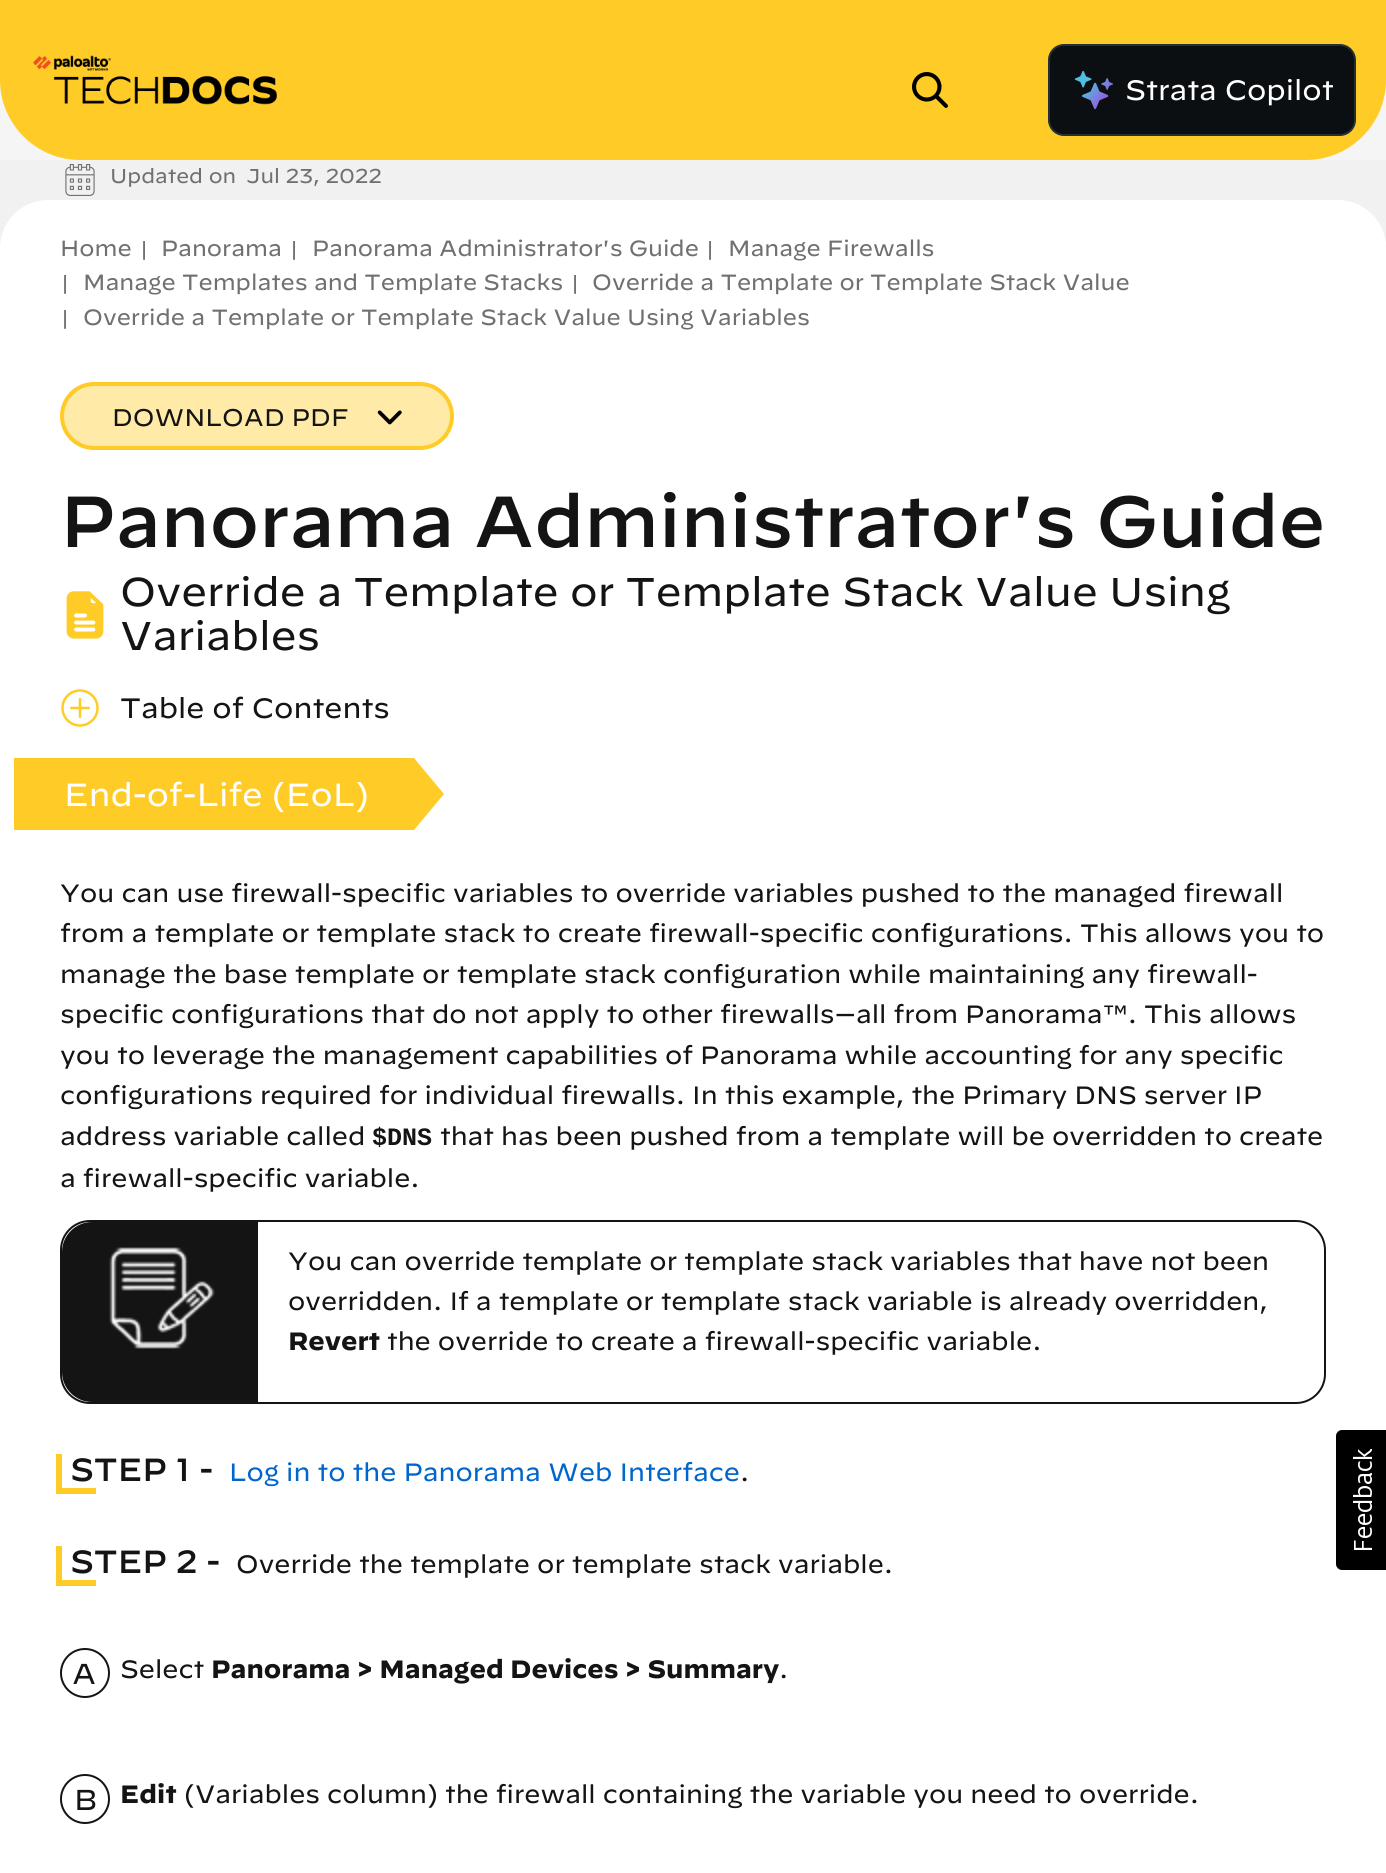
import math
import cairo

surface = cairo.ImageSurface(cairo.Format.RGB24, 1386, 1873)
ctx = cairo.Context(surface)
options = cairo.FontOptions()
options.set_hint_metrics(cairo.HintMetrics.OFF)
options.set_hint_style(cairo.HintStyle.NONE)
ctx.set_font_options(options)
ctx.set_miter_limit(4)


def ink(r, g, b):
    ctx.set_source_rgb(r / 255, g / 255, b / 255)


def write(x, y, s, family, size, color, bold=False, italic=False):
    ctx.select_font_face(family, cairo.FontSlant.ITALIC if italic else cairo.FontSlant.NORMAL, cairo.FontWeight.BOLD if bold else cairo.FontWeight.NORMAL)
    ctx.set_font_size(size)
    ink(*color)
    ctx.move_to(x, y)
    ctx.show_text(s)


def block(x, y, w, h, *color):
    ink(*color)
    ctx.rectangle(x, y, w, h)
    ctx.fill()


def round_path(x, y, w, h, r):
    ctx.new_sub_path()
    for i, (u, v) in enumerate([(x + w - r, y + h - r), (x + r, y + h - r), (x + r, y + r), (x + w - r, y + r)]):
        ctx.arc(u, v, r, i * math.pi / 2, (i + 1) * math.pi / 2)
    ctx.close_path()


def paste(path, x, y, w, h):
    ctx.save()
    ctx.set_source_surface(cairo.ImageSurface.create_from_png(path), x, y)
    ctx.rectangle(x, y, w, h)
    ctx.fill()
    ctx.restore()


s1 = dict(family="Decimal", size=28, color=(255, 255, 255))
s2 = dict(family="Decimal", size=20, color=(112, 112, 112))
s3 = dict(family="Decimal", size=22, color=(112, 112, 112))
s4 = dict(family="Decimal", size=24, color=(20, 20, 20))
s5 = dict(family="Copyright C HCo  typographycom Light", size=72, color=(20, 20, 20))
s6 = dict(family="Decimal", size=40, color=(20, 20, 20))
s7 = dict(family="Decimal", size=28, color=(20, 20, 20))
s8 = dict(family="Decimal", size=32, color=(255, 255, 255))
s9 = dict(family="Decimal", size=25, color=(20, 20, 20))
s10 = dict(family="Liberation Mono", size=25, color=(20, 20, 20), bold=True)
s11 = dict(family="Copyright C HCo  typographycom", size=25, color=(20, 20, 20))
s12 = dict(family="Copyright C HCo  typographycom Light", size=32, color=(20, 20, 20))
s13 = dict(family="Decimal", size=25, color=(0, 102, 204))

ink(245, 245, 245)
ctx.paint()
ink(255, 203, 38)
ctx.new_path()
ctx.move_to(0, 0)
ctx.line_to(1386, 0)
ctx.line_to(1386, 80)
ctx.curve_to(1386, 124, 1350, 160, 1306, 160)
ctx.line_to(80, 160)
ctx.curve_to(36, 160, 0, 124, 0, 80)
ctx.close_path()
ctx.fill()
paste("pic1.png", 33, 55, 244, 50)
paste("pic2.png", 912, 72, 36, 36)
ink(11, 15, 18)
round_path(1049, 45, 306, 90, 15)
ctx.fill_preserve()
ink(38, 47, 54)
ctx.stroke()
paste("pic3.png", 1074, 70, 40, 40)
write(1125, 100, "Strata Copilot", **s1)
block(0, 160, 1386, 88, 241, 241, 241)
paste("pic4.png", 65, 164, 30, 32)
write(110, 183, "Updated on", **s2)
write(246, 183, "Jul 23, 2022", **s2)
ink(255, 255, 255)
ctx.new_path()
ctx.move_to(48, 200)
ctx.line_to(1338, 200)
ctx.curve_to(1364.5, 200, 1386, 221.5, 1386, 248)
ctx.line_to(1386, 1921)
ctx.line_to(0, 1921)
ctx.line_to(0, 248)
ctx.curve_to(0, 221.5, 21.5, 200, 48, 200)
ctx.close_path()
ctx.fill()
write(60, 256, "Home", **s3)
write(139, 256, "|", **s2)
write(161, 256, "Panorama", **s3)
write(289, 256, "|", **s2)
write(312, 256, "Panorama Administrator's Guide", **s3)
write(705, 256, "|", **s2)
write(728, 256, "Manage Firewalls", **s3)
write(60, 290, "|", **s2)
write(83, 290, "Manage Templates and Template Stacks", **s3)
write(570, 290, "|", **s2)
write(592, 290, "Override a Template or Template Stack Value", **s3)
write(60, 325, "|", **s2)
write(83, 325, "Override a Template or Template Stack Value Using Variables", **s3)
ink(255, 234, 168)
round_path(62, 384, 390, 64, 32)
ctx.fill_preserve()
ink(255, 203, 38)
ctx.set_line_width(4)
ctx.stroke()
write(112, 426, "DOWNLOAD PDF", **s4)
paste("pic5.png", 377, 410, 25, 15)
write(60, 547, "Panorama Administrator's Guide", **s5)
paste("pic6.png", 66, 591, 38, 48)
write(120, 606, "Override a Template or Template Stack Value Using", **s6)
write(120, 650, "Variables", **s6)
paste("pic7.png", 61, 689, 38, 38)
write(120, 718, "Table of Contents", **s7)
block(14, 758, 400, 72, 255, 203, 38)
write(64, 806, "End-of-Life (EoL)", **s8)
ink(255, 203, 38)
ctx.new_path()
ctx.move_to(414, 830)
ctx.line_to(414, 758)
ctx.line_to(444, 794)
ctx.close_path()
ctx.fill()
write(60, 902, "You can use firewall-specific variables to override variables pushed to the managed firewall", **s9)
write(60, 942, "from a template or template stack to create firewall-specific configurations. This allows you to", **s9)
write(60, 983, "manage the base template or template stack configuration while maintaining any firewall-", **s9)
write(60, 1023, "specific configurations that do not apply to other firewalls—all from Panorama™. This allows", **s9)
write(60, 1064, "you to leverage the management capabilities of Panorama while accounting for any specific", **s9)
write(60, 1104, "configurations required for individual firewalls. In this example, the Primary DNS server IP", **s9)
write(60, 1145, "address variable called", **s9)
write(372, 1145, "$DNS", **s10)
write(440, 1145, "that has been pushed from a template will be overridden to create", **s9)
write(60, 1187, "a firewall-specific variable.", **s9)
round_path(61, 1221, 1264, 182, 29)
ctx.set_line_width(2)
ctx.stroke()
ctx.new_path()
ctx.move_to(92, 1222)
ctx.line_to(258, 1222)
ctx.line_to(258, 1402)
ctx.line_to(92, 1402)
ctx.curve_to(75.5, 1402, 62, 1388.5, 62, 1372)
ctx.line_to(62, 1252)
ctx.curve_to(62, 1235.5, 75.5, 1222, 92, 1222)
ctx.close_path()
ctx.fill()
paste("pic8.png", 109, 1247, 106, 102)
write(288, 1270, "You can override template or template stack variables that have not been", **s9)
write(288, 1310, "overridden. If a template or template stack variable is already overridden,", **s9)
write(288, 1350, "Revert", **s11)
write(387, 1350, "the override to create a firewall-specific variable.", **s9)
block(56, 1454, 6, 34, 255, 203, 38)
write(70, 1481, "STEP 1 -", **s12)
write(229, 1481, "Log in to the Panorama Web Interface", **s13)
write(740, 1481, ".", **s9)
block(56, 1488, 40, 6, 255, 203, 38)
block(56, 1546, 6, 34, 255, 203, 38)
write(70, 1573, "STEP 2 -", **s12)
write(236, 1573, "Override the template or template stack variable.", **s9)
block(56, 1580, 40, 6, 255, 203, 38)
ctx.new_path()
ctx.arc(85, 1673, 24, 0, 2 * math.pi)
ink(20, 20, 20)
ctx.stroke()
paste("pic9.png", 73, 1663, 22, 21)
write(120, 1678, "Select", **s9)
write(211, 1678, "Panorama > Managed Devices > Summary", **s11)
write(779, 1678, ".", **s9)
ctx.new_path()
ctx.arc(85, 1799, 24, 0, 2 * math.pi)
ctx.stroke()
paste("pic10.png", 77, 1789, 19, 21)
write(120, 1803, "Edit", **s11)
write(184, 1803, "(Variables column) the firewall containing the variable you need to override.", **s9)
paste("pic11.png", 1336, 1430, 50, 140)
surface.write_to_png("screenshot.png")
